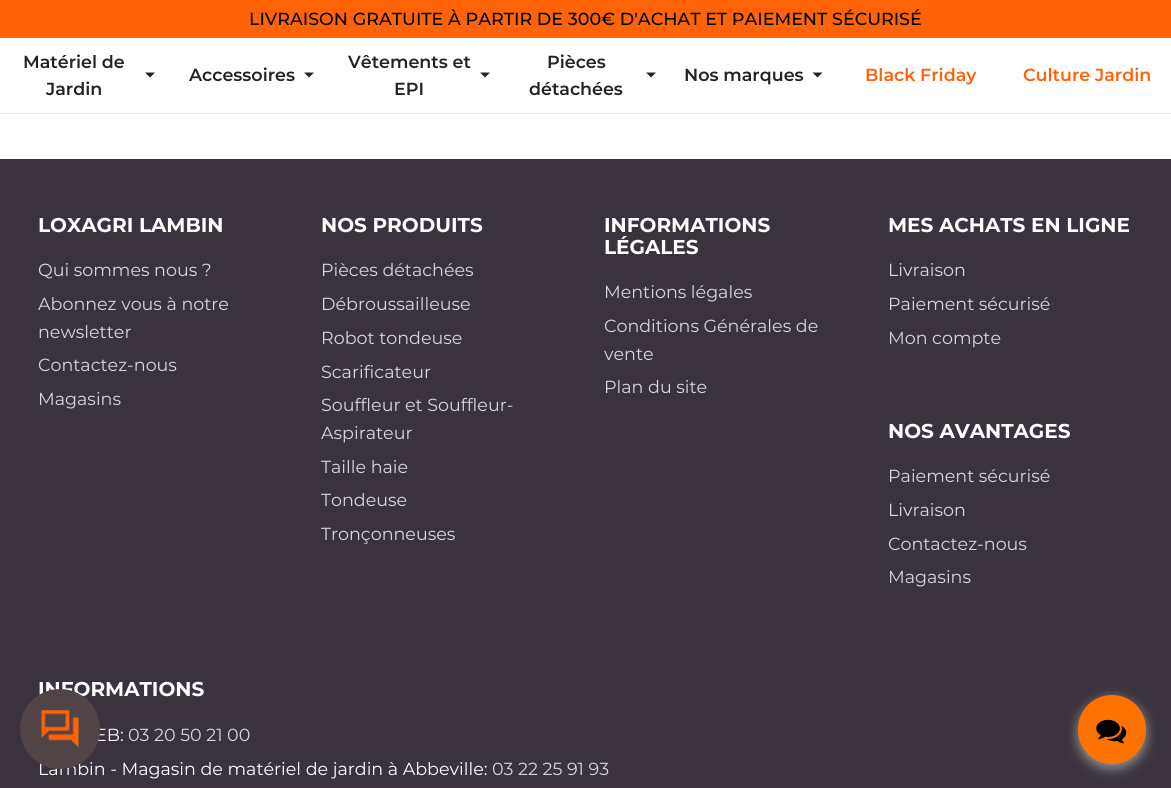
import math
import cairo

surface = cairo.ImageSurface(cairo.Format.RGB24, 1171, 788)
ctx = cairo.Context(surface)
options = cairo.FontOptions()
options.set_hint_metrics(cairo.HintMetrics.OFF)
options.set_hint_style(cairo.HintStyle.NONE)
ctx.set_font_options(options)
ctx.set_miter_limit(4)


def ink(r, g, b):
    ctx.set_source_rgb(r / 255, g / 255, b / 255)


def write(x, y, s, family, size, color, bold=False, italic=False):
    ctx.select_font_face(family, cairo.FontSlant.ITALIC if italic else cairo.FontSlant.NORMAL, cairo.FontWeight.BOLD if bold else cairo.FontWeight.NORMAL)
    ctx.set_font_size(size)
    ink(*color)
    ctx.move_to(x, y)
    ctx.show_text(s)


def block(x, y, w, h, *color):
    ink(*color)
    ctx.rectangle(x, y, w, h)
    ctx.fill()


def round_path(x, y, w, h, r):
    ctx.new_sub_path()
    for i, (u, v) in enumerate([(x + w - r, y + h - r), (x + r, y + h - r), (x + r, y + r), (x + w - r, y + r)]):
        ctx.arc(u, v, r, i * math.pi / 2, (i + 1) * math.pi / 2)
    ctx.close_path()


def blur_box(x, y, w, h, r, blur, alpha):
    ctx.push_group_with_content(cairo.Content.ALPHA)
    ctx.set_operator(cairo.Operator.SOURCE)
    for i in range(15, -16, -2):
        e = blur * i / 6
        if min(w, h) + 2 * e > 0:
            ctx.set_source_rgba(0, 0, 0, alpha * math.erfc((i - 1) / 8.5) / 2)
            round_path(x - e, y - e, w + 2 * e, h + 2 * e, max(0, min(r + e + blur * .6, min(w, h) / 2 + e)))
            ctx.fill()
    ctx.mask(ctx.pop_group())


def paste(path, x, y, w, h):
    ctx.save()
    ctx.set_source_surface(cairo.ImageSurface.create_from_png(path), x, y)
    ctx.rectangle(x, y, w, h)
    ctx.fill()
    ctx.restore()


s1 = dict(family="Montserrat Medium", size=17.5, color=(0, 0, 0))
s2 = dict(family="Montserrat SemiBold", size=17.5, color=(35, 35, 35))
s3 = dict(family="Montserrat SemiBold", size=17.5, color=(255, 99, 8))
s4 = dict(family="Montserrat", size=20, color=(255, 255, 255), bold=True)
s5 = dict(family="Montserrat", size=17.5, color=(216, 214, 216))
s6 = dict(family="Montserrat", size=17.5, color=(255, 255, 255))

ink(255, 255, 255)
ctx.paint()
block(0, 0, 1171, 38, 255, 99, 8)
write(249, 25, "LIVRAISON GRATUITE À PARTIR DE 300€ D'ACHAT ET PAIEMENT SÉCURISÉ", **s1)
block(0, 113, 1171, 1, 231, 231, 231)
write(23, 68, "Matériel de", **s2)
ctx.new_path()
ctx.move_to(145, 72.5)
ctx.line_to(155, 72.5)
ctx.line_to(150, 77.5)
ctx.close_path()
ctx.fill()
write(46, 95, "Jardin", **s2)
write(189, 81, "Accessoires", **s2)
ctx.new_path()
ctx.move_to(304, 72.5)
ctx.line_to(314, 72.5)
ctx.line_to(309, 77.5)
ctx.close_path()
ctx.fill()
write(348, 68, "Vêtements et", **s2)
ctx.new_path()
ctx.move_to(480, 72.5)
ctx.line_to(490, 72.5)
ctx.line_to(485, 77.5)
ctx.close_path()
ctx.fill()
write(394, 95, "EPI", **s2)
write(547, 68, "Pièces", **s2)
ctx.new_path()
ctx.move_to(646, 72.5)
ctx.line_to(656, 72.5)
ctx.line_to(651, 77.5)
ctx.close_path()
ctx.fill()
write(529, 95, "détachées", **s2)
write(684, 81, "Nos marques", **s2)
ctx.new_path()
ctx.move_to(812.5, 72.5)
ctx.line_to(822.5, 72.5)
ctx.line_to(817.5, 77.5)
ctx.close_path()
ctx.fill()
write(865, 81, "Black Friday", **s3)
write(1023, 81, "Culture Jardin", **s3)
block(0, 159, 1171, 629, 58, 50, 60)
write(38, 232, "LOXAGRI LAMBIN", **s4)
write(38, 276, "Qui sommes nous ?", **s5)
write(38, 310, "Abonnez vous à notre", **s5)
write(38, 338, "newsletter", **s5)
write(38, 371, "Contactez-nous", **s5)
write(38, 405, "Magasins", **s5)
write(321, 232, "NOS PRODUITS", **s4)
write(321, 276, "Pièces détachées", **s5)
write(321, 310, "Débroussailleuse", **s5)
write(321, 344, "Robot tondeuse", **s5)
write(321, 378, "Scarificateur", **s5)
write(321, 411, "Souffleur et Souffleur-", **s5)
write(321, 439, "Aspirateur", **s5)
write(321, 473, "Taille haie", **s5)
write(321, 506, "Tondeuse", **s5)
write(321, 540, "Tronçonneuses", **s5)
write(604, 232, "INFORMATIONS", **s4)
write(604, 254, "LÉGALES", **s4)
write(604, 298, "Mentions légales", **s5)
write(604, 332, "Conditions Générales de", **s5)
write(604, 360, "vente", **s5)
write(604, 393, "Plan du site", **s5)
write(888, 232, "MES ACHATS EN LIGNE", **s4)
write(888, 276, "Livraison", **s5)
write(888, 310, "Paiement sécurisé", **s5)
write(888, 344, "Mon compte", **s5)
write(888, 438, "NOS AVANTAGES", **s4)
write(888, 482, "Paiement sécurisé", **s5)
write(888, 516, "Livraison", **s5)
write(888, 550, "Contactez-nous", **s5)
write(888, 583, "Magasins", **s5)
write(38, 696, "INFORMATIONS", **s4)
write(95, 741, "EB:", **s6)
write(128, 741, "03 20 50 21 00", **s5)
write(38, 775, "Lambin - Magasin de matériel de jardin à Abbeville:", **s6)
write(492, 775, "03 22 25 91 93", **s5)
ink(81, 68, 70)
ctx.new_path()
ctx.arc(60, 729, 40, 0, 2 * math.pi)
ctx.fill()
paste("pic1.png", 41, 710, 38, 38)
ink(153, 153, 153)
blur_box(1078, 699, 68, 69, 34, 6, 1)
ink(255, 114, 0)
round_path(1078, 695, 68, 69, 34)
ctx.fill()
paste("pic2.png", 1096, 719, 31, 25)
surface.write_to_png("screenshot.png")
